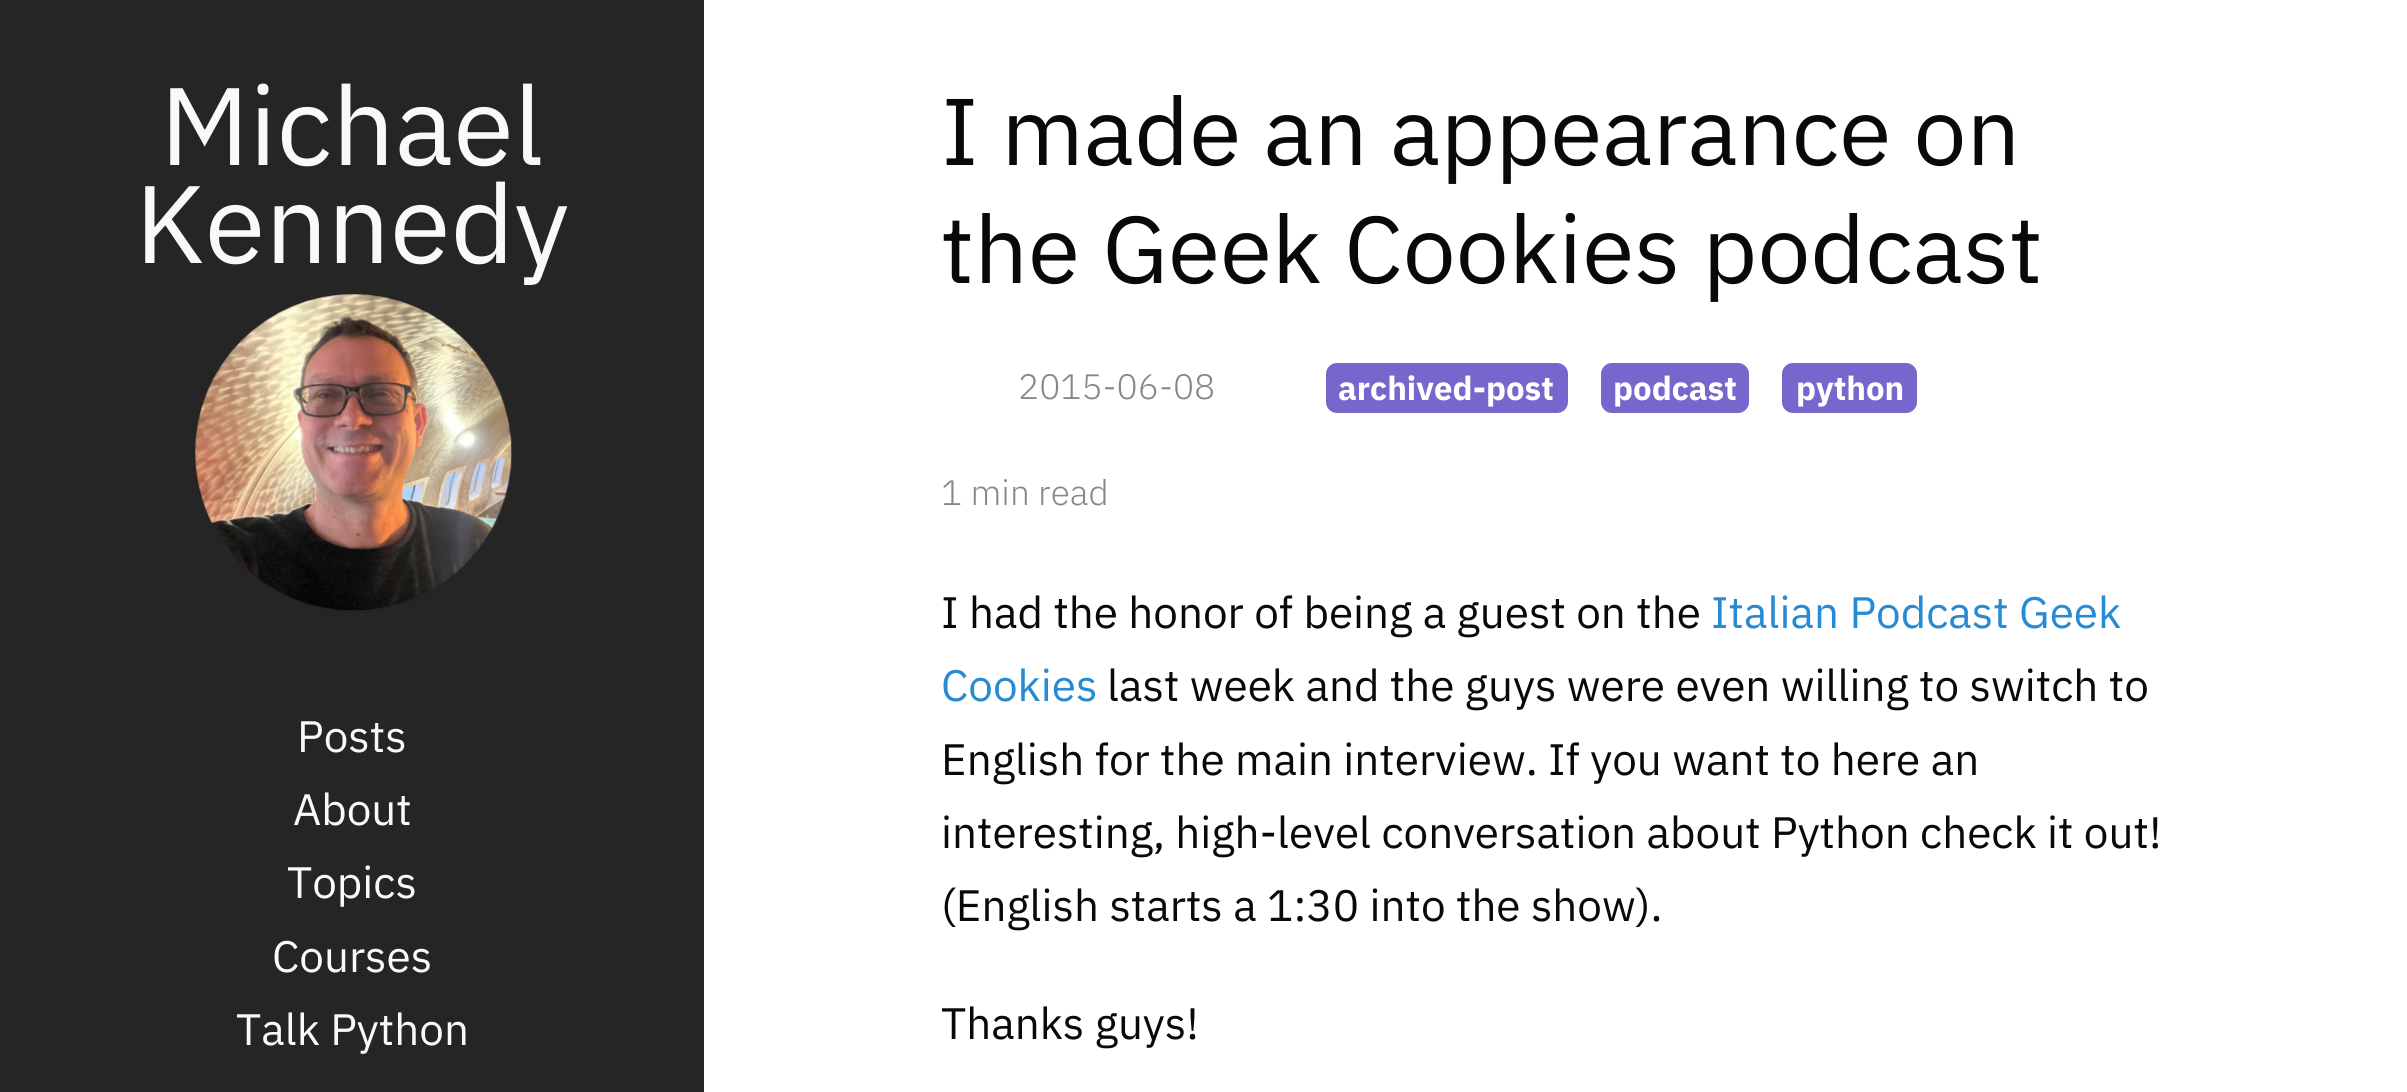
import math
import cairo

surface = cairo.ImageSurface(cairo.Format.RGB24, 2407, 1092)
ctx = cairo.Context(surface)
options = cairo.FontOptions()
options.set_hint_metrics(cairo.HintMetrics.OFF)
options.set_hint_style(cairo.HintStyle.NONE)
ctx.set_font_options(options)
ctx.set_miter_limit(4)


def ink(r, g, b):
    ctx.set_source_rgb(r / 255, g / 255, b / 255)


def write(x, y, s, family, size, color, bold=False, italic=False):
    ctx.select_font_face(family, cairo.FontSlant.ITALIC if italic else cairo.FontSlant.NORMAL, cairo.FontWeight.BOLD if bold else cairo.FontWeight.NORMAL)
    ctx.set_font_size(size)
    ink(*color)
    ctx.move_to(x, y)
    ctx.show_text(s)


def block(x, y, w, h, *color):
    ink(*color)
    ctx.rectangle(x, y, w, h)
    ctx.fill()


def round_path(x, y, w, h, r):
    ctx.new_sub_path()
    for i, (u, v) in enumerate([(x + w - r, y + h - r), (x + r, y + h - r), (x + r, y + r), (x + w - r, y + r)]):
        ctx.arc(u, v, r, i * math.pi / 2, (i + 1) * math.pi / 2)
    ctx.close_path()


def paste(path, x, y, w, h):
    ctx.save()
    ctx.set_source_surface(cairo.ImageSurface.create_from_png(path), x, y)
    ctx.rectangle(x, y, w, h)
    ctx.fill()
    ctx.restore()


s1 = dict(family="IBM Plex Sans", size=110, color=(249, 249, 249))
s2 = dict(family="IBM Plex Sans", size=44, color=(249, 249, 249))
s3 = dict(family="IBM Plex Sans", size=94.6, color=(9, 9, 9))
s4 = dict(family="IBM Plex Sans Light", size=35.25, color=(135, 135, 135))
s5 = dict(family="IBM Plex Sans", size=33, color=(255, 255, 255), bold=True)
s6 = dict(family="IBM Plex Sans", size=44, color=(9, 9, 9))
s7 = dict(family="IBM Plex Sans", size=44, color=(38, 139, 210))

ink(255, 255, 255)
ctx.paint()
block(0, 0, 704, 1092, 37, 37, 37)
write(160, 165, "Michael", **s1)
write(135, 263, "Kennedy", **s1)
paste("pic1.png", 195, 294, 317, 317)
write(297, 752, "Posts", **s2)
write(293, 825, "About", **s2)
write(287, 898, "Topics", **s2)
write(272, 972, "Courses", **s2)
write(236, 1045, "Talk Python", **s2)
write(941, 165, "I made an appearance on", **s3)
write(941, 283, "the Geek Cookies podcast", **s3)
write(1018, 399, "2015-06-08", **s4)
ink(119, 102, 204)
round_path(1326, 363, 242, 50, 11)
ctx.fill()
write(1338, 400, "archived-post", **s5)
ink(119, 102, 204)
round_path(1601, 363, 148, 50, 11)
ctx.fill()
write(1613, 400, "podcast", **s5)
ink(119, 102, 204)
round_path(1782, 363, 135, 50, 11)
ctx.fill()
write(1796, 400, "python", **s5)
write(941, 505, "1 min read", **s4)
write(941, 628, "I had the honor of being a guest on the", **s6)
write(1711, 628, "Italian Podcast Geek", **s7)
write(941, 701, "Cookies", **s7)
write(1107, 701, "last week and the guys were even willing to switch to", **s6)
write(941, 775, "English for the main interview. If you want to here an", **s6)
write(941, 848, "interesting, high-level conversation about Python check it out!", **s6)
write(941, 921, "(English starts a 1:30 into the show).", **s6)
write(941, 1039, "Thanks guys!", **s6)
surface.write_to_png("screenshot.png")
